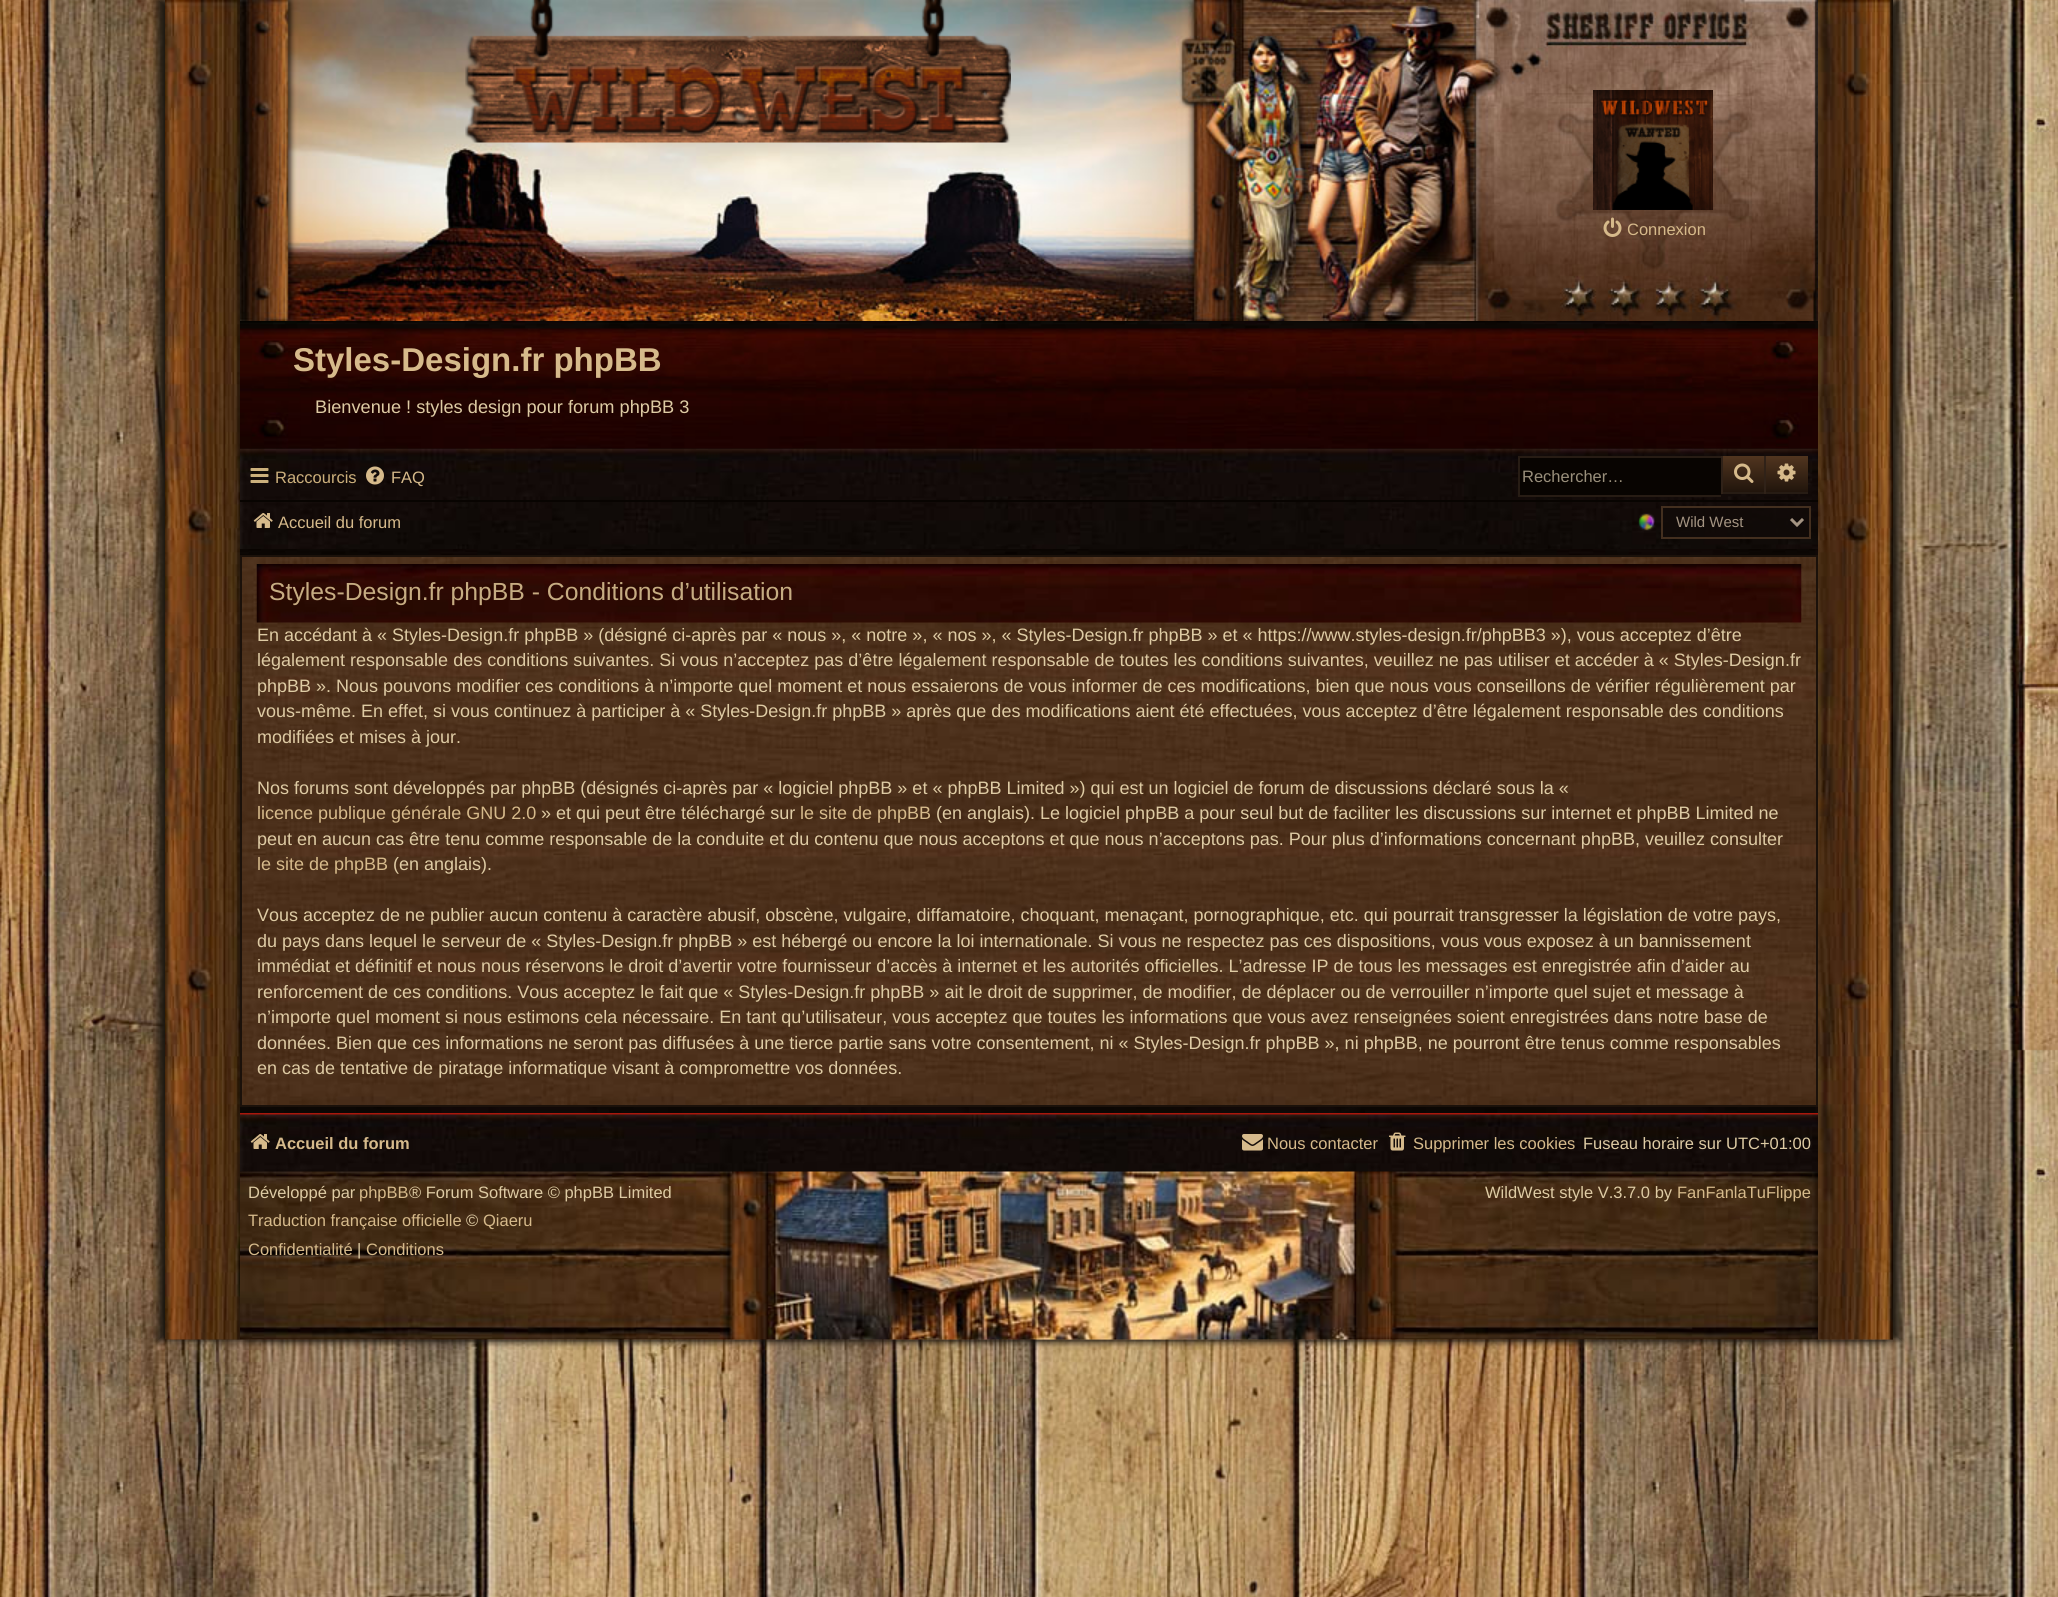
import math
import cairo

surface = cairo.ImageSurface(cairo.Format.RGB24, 2058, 1597)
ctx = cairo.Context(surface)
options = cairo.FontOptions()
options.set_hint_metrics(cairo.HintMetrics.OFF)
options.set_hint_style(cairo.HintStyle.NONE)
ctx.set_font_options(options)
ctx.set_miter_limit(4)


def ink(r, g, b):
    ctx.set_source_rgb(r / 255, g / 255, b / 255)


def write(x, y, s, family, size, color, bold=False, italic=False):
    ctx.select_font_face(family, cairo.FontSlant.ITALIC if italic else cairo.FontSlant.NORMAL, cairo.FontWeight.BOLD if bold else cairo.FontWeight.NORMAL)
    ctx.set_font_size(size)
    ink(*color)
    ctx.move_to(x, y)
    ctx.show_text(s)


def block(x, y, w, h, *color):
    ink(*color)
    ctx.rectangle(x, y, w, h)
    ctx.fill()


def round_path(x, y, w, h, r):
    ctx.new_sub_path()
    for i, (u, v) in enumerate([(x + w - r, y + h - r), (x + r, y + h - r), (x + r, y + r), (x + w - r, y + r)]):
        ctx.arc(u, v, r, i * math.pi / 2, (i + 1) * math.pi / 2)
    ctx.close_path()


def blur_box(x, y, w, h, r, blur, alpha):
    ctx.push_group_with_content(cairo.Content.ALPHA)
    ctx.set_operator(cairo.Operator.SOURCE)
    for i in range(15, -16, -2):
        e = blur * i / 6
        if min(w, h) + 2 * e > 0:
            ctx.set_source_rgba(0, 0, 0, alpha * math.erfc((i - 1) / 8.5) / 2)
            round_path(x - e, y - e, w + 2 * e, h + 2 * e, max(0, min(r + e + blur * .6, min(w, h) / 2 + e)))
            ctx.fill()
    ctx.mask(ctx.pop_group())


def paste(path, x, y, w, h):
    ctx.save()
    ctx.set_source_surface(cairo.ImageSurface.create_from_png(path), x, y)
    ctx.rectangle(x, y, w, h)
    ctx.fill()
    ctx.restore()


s1 = dict(family="Liberation Sans", size=16.5, color=(214, 186, 139))
s2 = dict(family="Liberation Sans", size=33, color=(214, 186, 139), bold=True)
s3 = dict(family="Liberation Sans", size=18.2, color=(222, 203, 164))
s4 = dict(family="Liberation Sans", size=16.5, color=(204, 176, 124))
s5 = dict(family="Liberation Sans", size=16.5, color=(153, 143, 123))
s6 = dict(family="Liberation Sans", size=15, color=(164, 148, 130))
s7 = dict(family="Liberation Sans", size=24.75, color=(198, 172, 130))
s8 = dict(family="Liberation Sans", size=18, color=(222, 203, 164))
s9 = dict(family="Liberation Sans", size=18, color=(214, 186, 139))
s10 = dict(family="Liberation Sans", size=16.5, color=(214, 186, 139), bold=True)
s11 = dict(family="Liberation Sans", size=16.5, color=(222, 203, 164))

ink(255, 255, 255)
ctx.paint()
paste("pic1.png", 0, 0, 2058, 1597)
paste("pic2.png", 165, 321, 1728, 1019)
ctx.save()
ctx.set_fill_rule(cairo.FillRule.EVEN_ODD)
ctx.new_path()
ctx.move_to(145, 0)
ctx.line_to(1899, 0)
ctx.line_to(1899, 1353)
ctx.line_to(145, 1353)
ctx.close_path()
ctx.move_to(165, 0)
ctx.line_to(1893, 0)
ctx.line_to(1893, 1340)
ctx.line_to(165, 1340)
ctx.close_path()
ctx.clip()
ink(28, 23, 16)
blur_box(158, 0, 1728, 1340, 0, 4, 1)
ctx.restore()
paste("pic3.png", 165, 0, 75, 1340)
ctx.save()
ctx.set_fill_rule(cairo.FillRule.EVEN_ODD)
ctx.new_path()
ctx.move_to(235, 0)
ctx.line_to(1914, 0)
ctx.line_to(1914, 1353)
ctx.line_to(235, 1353)
ctx.close_path()
ctx.move_to(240, 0)
ctx.line_to(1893, 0)
ctx.line_to(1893, 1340)
ctx.line_to(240, 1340)
ctx.close_path()
ctx.clip()
ink(28, 23, 16)
blur_box(248, 0, 1653, 1340, 0, 4, 0.9)
ctx.restore()
paste("pic4.png", 1818, 0, 75, 1340)
paste("pic5.png", 240, 0, 1578, 321)
paste("pic6.png", 465, 0, 546, 143)
paste("pic7.png", 1593, 90, 120, 120)
paste("pic8.png", 1603, 217, 19, 20)
write(1627, 235, "Connexion", **s1)
paste("pic10.png", 240, 448, 1578, 101)
paste("pic9.png", 240, 328, 1578, 121)
write(293, 371, "Styles-Design.fr phpBB", **s2)
write(315, 413, "Bienvenue ! styles design pour forum phpBB 3", **s3)
paste("pic11.png", 250, 468, 19, 15)
write(275, 483, "Raccourcis", **s4)
paste("pic12.png", 366, 466, 18, 19)
write(391, 483, "FAQ", **s1)
gradient = cairo.LinearGradient(1743, 456, 1743, 492)
gradient.add_color_stop_rgba(0, 0.318, 0.208, 0.122, 1)
gradient.add_color_stop_rgba(1, 0.129, 0.082, 0.047, 1)
ctx.set_source(gradient)
ctx.rectangle(1723, 456, 41, 36)
ctx.fill()
block(1721, 492, 87, 2, 39, 28, 20)
block(1721, 456, 2, 38, 48, 34, 24)
paste("pic13.png", 1734, 463, 20, 20)
block(1520, 458, 201, 37, 8, 4, 1)
block(1518, 456, 203, 2, 39, 28, 20)
block(1518, 495, 203, 2, 39, 28, 20)
block(1518, 456, 2, 41, 39, 28, 20)
write(1522, 482, "Rechercher…", **s5)
gradient = cairo.LinearGradient(1787, 456, 1787, 492)
gradient.add_color_stop_rgba(0, 0.318, 0.208, 0.122, 1)
gradient.add_color_stop_rgba(1, 0.129, 0.082, 0.047, 1)
ctx.set_source(gradient)
ctx.rectangle(1766, 456, 42, 36)
ctx.fill()
block(1764, 456, 2, 38, 48, 34, 24)
paste("pic14.png", 1777, 463, 19, 19)
block(240, 500, 1578, 2, 8, 4, 1)
paste("pic15.png", 253, 513, 20, 15)
write(278, 528, "Accueil du forum", **s1)
paste("pic16.png", 1638, 513, 17, 18)
ctx.set_source_rgba(0.067, 0.043, 0.031, 0.8)
ctx.rectangle(1662, 507, 148, 31)
ctx.fill_preserve()
ink(67, 47, 31)
ctx.stroke()
ctx.new_path()
ctx.move_to(1791, 519)
ctx.line_to(1797, 525)
ctx.line_to(1803, 519)
ink(164, 148, 130)
ctx.set_line_width(3)
ctx.stroke()
write(1676, 527, "Wild West", **s6)
paste("pic17.png", 242, 557, 1574, 548)
ctx.rectangle(241, 556, 1576, 550)
ink(27, 17, 10)
ctx.set_line_width(2)
ctx.stroke()
paste("pic18.png", 256, 564, 1546, 59)
write(269, 600, "Styles-Design.fr phpBB - Conditions d’utilisation", **s7)
write(257, 641, "En accédant à « Styles-Design.fr phpBB » (désigné ci-après par « nous », « notre », « nos », « Styles-Design.fr phpBB » et « https://www.styles-design.fr/phpBB3 »), vous acceptez d’être", **s8)
write(257, 666, "légalement responsable des conditions suivantes. Si vous n’acceptez pas d’être légalement responsable de toutes les conditions suivantes, veuillez ne pas utiliser et accéder à « Styles-Design.fr", **s8)
write(257, 692, "phpBB ». Nous pouvons modifier ces conditions à n’importe quel moment et nous essaierons de vous informer de ces modifications, bien que nous vous conseillons de vérifier régulièrement par", **s8)
write(257, 717, "vous-même. En effet, si vous continuez à participer à « Styles-Design.fr phpBB » après que des modifications aient été effectuées, vous acceptez d’être légalement responsable des conditions", **s8)
write(257, 743, "modifiées et mises à jour.", **s8)
write(257, 794, "Nos forums sont développés par phpBB (désignés ci-après par « logiciel phpBB » et « phpBB Limited ») qui est un logiciel de forum de discussions déclaré sous la «", **s8)
write(257, 819, "licence publique générale GNU 2.0", **s9)
write(541, 819, "» et qui peut être téléchargé sur", **s8)
write(800, 819, "le site de phpBB", **s9)
write(936, 819, "(en anglais). Le logiciel phpBB a pour seul but de faciliter les discussions sur internet et phpBB Limited ne", **s8)
write(257, 845, "peut en aucun cas être tenu comme responsable de la conduite et du contenu que nous acceptons et que nous n’acceptons pas. Pour plus d’informations concernant phpBB, veuillez consulter", **s8)
write(257, 870, "le site de phpBB", **s9)
write(393, 870, "(en anglais).", **s8)
write(257, 921, "Vous acceptez de ne publier aucun contenu à caractère abusif, obscène, vulgaire, diffamatoire, choquant, menaçant, pornographique, etc. qui pourrait transgresser la législation de votre pays,", **s8)
write(257, 947, "du pays dans lequel le serveur de « Styles-Design.fr phpBB » est hébergé ou encore la loi internationale. Si vous ne respectez pas ces dispositions, vous vous exposez à un bannissement", **s8)
write(257, 972, "immédiat et définitif et nous nous réservons le droit d’avertir votre fournisseur d’accès à internet et les autorités officielles. L’adresse IP de tous les messages est enregistrée afin d’aider au", **s8)
write(257, 998, "renforcement de ces conditions. Vous acceptez le fait que « Styles-Design.fr phpBB » ait le droit de supprimer, de modifier, de déplacer ou de verrouiller n’importe quel sujet et message à", **s8)
write(257, 1023, "n’importe quel moment si nous estimons cela nécessaire. En tant qu’utilisateur, vous acceptez que toutes les informations que vous avez renseignées soient enregistrées dans notre base de", **s8)
write(257, 1049, "données. Bien que ces informations ne seront pas diffusées à une tierce partie sans votre consentement, ni « Styles-Design.fr phpBB », ni phpBB, ne pourront être tenus comme responsables", **s8)
write(257, 1074, "en cas de tentative de piratage informatique visant à compromettre vos données.", **s8)
block(240, 1113, 1578, 2, 170, 23, 12)
paste("pic19.png", 240, 1114, 1578, 58)
paste("pic20.png", 250, 1134, 20, 15)
write(275, 1149, "Accueil du forum", **s10)
paste("pic21.png", 1242, 1134, 21, 17)
write(1267, 1149, "Nous contacter", **s1)
paste("pic22.png", 1389, 1132, 17, 19)
write(1413, 1149, "Supprimer les cookies", **s1)
write(1583, 1149, "Fuseau horaire sur UTC+01:00", **s11)
paste("pic23.png", 240, 1171, 1578, 169)
write(248, 1198, "Développé par", **s11)
write(359, 1198, "phpBB", **s1)
write(409, 1198, "® Forum Software © phpBB Limited", **s11)
write(1485, 1198, "WildWest style V.3.7.0 by", **s11)
write(1677, 1198, "FanFanlaTuFlippe", **s1)
write(248, 1226, "Traduction française officielle", **s1)
write(466, 1226, "©", **s11)
write(483, 1226, "Qiaeru", **s1)
write(248, 1255, "Confidentialité", **s1)
write(357, 1255, "|", **s11)
write(366, 1255, "Conditions", **s1)
surface.write_to_png("screenshot.png")
